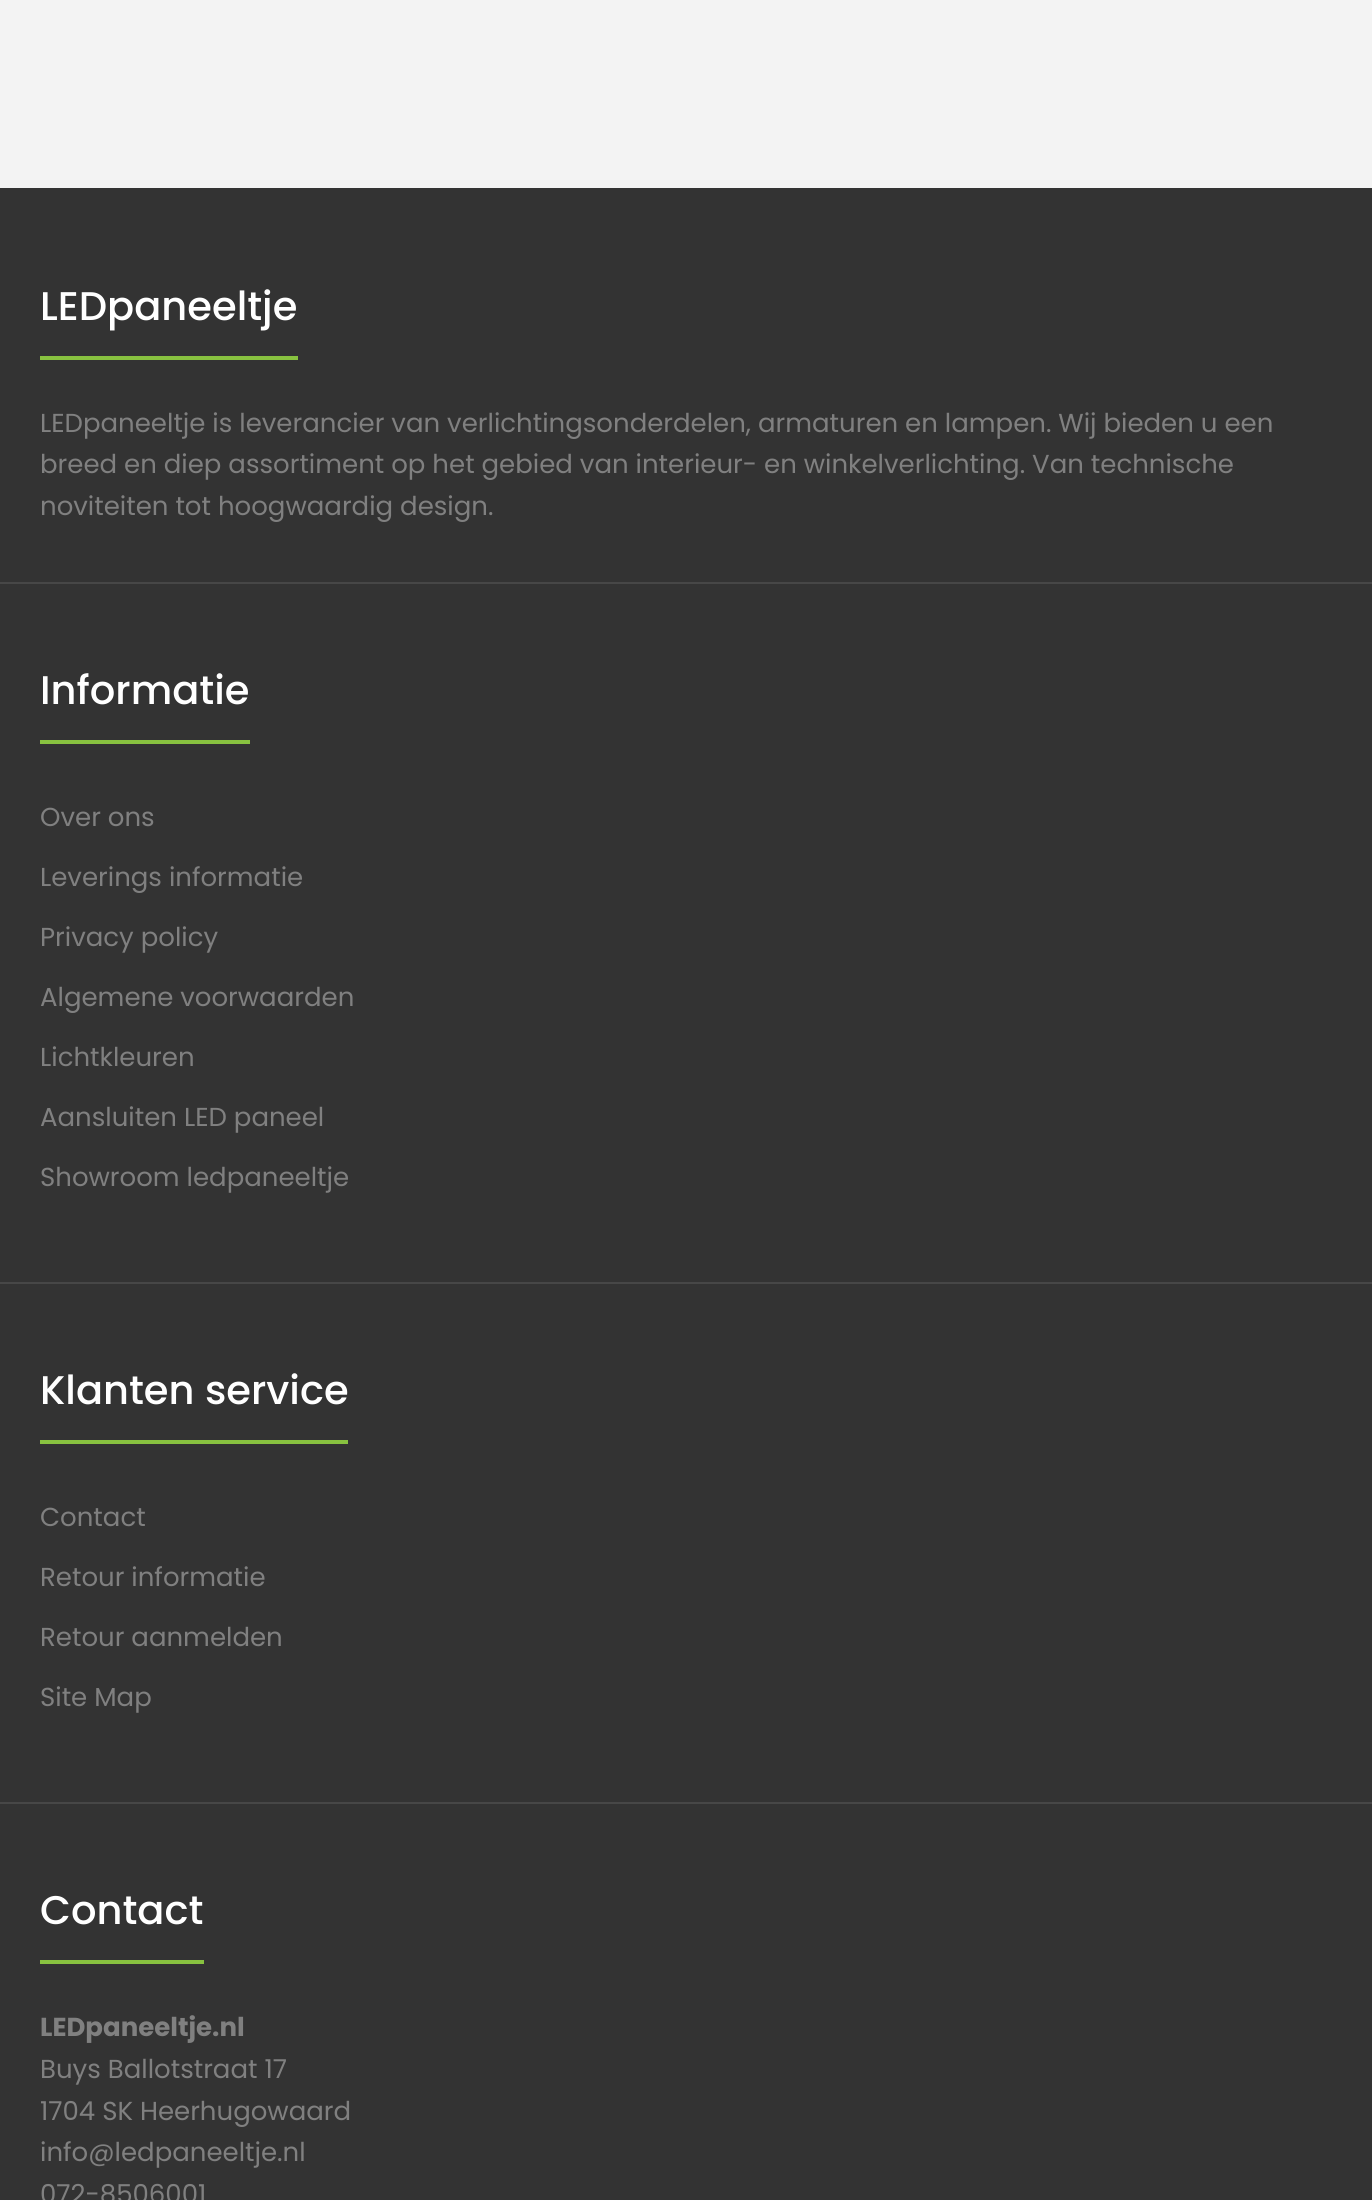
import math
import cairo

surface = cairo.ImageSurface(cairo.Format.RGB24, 1372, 2200)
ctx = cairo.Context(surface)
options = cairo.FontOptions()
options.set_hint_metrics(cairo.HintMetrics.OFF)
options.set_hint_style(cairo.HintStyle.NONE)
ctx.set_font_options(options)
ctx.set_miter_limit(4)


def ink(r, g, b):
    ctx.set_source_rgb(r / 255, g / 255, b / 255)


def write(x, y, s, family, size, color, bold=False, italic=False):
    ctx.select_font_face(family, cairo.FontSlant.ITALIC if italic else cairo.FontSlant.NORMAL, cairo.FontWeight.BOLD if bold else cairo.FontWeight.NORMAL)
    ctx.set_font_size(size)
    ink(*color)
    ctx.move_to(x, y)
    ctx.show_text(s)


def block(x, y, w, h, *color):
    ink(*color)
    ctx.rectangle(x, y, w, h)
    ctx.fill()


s1 = dict(family="Poppins Medium", size=40, color=(255, 255, 255))
s2 = dict(family="Poppins", size=26, color=(128, 128, 128))
s3 = dict(family="Poppins", size=26, color=(128, 128, 128), bold=True)

ink(243, 243, 243)
ctx.paint()
block(0, 188, 1372, 2012, 51, 51, 51)
block(40, 356, 258, 4, 136, 194, 64)
write(40, 320, "LEDpaneeltje", **s1)
write(40, 432, "LEDpaneeltje is leverancier van verlichtingsonderdelen, armaturen en lampen. Wij bieden u een", **s2)
write(40, 473, "breed en diep assortiment op het gebied van interieur- en winkelverlichting. Van technische", **s2)
write(40, 515, "noviteiten tot hoogwaardig design.", **s2)
block(0, 582, 1372, 2, 71, 71, 71)
block(40, 740, 210, 4, 136, 194, 64)
write(40, 704, "Informatie", **s1)
write(40, 826, "Over ons", **s2)
write(40, 886, "Leverings informatie", **s2)
write(40, 946, "Privacy policy", **s2)
write(40, 1006, "Algemene voorwaarden", **s2)
write(40, 1066, "Lichtkleuren", **s2)
write(40, 1126, "Aansluiten LED paneel", **s2)
write(40, 1186, "Showroom ledpaneeltje", **s2)
block(0, 1282, 1372, 2, 71, 71, 71)
block(40, 1440, 308, 4, 136, 194, 64)
write(40, 1404, "Klanten service", **s1)
write(40, 1526, "Contact", **s2)
write(40, 1586, "Retour informatie", **s2)
write(40, 1646, "Retour aanmelden", **s2)
write(40, 1706, "Site Map", **s2)
block(0, 1802, 1372, 2, 71, 71, 71)
block(40, 1960, 164, 4, 136, 194, 64)
write(40, 1924, "Contact", **s1)
write(40, 2036, "LEDpaneeltje.nl", **s3)
write(40, 2078, "Buys Ballotstraat 17", **s2)
write(40, 2120, "1704 SK Heerhugowaard", **s2)
write(40, 2161, "info@ledpaneeltje.nl", **s2)
write(40, 2203, "072-8506001", **s2)
surface.write_to_png("screenshot.png")
